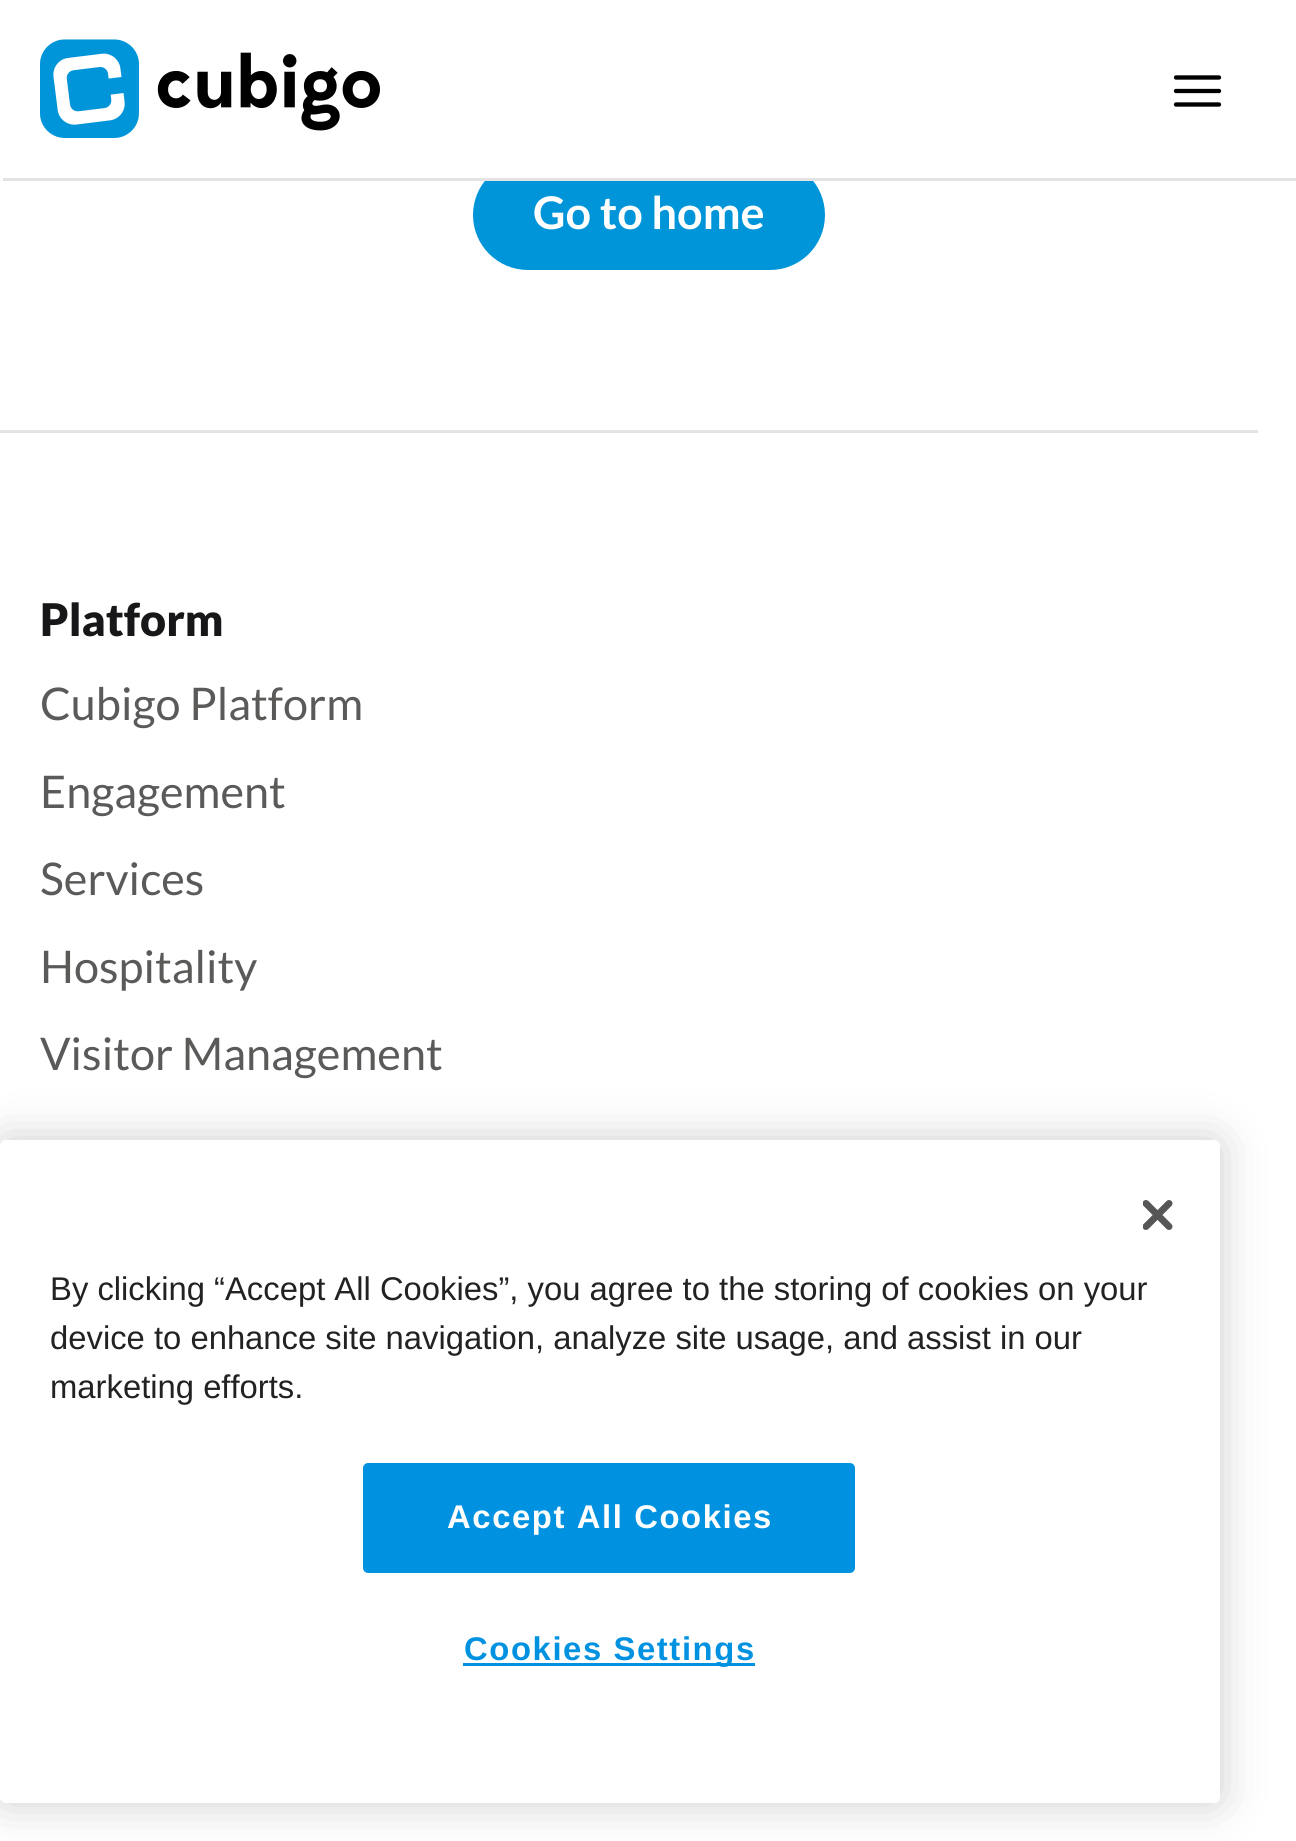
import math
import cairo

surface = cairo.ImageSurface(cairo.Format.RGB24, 1296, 1841)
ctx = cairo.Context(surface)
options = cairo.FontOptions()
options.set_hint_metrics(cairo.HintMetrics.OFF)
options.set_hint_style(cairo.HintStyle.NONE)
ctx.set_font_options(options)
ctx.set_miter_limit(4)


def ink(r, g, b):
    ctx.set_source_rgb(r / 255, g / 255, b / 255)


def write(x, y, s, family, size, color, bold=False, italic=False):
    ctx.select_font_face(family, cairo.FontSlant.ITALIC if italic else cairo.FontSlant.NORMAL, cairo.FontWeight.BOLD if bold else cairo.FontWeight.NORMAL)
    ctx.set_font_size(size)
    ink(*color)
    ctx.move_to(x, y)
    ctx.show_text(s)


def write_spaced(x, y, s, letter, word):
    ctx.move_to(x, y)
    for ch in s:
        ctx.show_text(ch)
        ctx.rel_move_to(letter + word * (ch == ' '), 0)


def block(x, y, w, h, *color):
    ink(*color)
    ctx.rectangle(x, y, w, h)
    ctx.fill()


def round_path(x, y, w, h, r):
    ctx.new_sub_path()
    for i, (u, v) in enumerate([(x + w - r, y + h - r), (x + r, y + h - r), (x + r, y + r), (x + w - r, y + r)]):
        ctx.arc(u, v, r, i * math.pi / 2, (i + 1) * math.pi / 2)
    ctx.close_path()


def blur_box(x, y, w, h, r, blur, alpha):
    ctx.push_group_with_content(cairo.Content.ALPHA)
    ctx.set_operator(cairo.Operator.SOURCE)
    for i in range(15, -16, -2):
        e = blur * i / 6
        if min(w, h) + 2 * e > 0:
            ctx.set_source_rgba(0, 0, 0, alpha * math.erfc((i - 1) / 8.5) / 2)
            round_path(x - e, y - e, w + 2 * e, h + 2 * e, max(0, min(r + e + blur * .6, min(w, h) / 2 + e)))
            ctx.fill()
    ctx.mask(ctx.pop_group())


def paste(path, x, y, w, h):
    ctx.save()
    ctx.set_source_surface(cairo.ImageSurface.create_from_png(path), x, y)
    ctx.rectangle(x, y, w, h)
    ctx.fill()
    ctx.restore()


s1 = dict(family="Lato", size=45, color=(255, 255, 255), bold=True)
s2 = dict(family="Lato Black", size=45, color=(23, 22, 24))
s3 = dict(family="Lato", size=45, color=(91, 90, 89))
s4 = dict(family="Liberation Sans", size=32.8, color=(34, 34, 34))

ink(255, 255, 255)
ctx.paint()
ink(0, 149, 217)
round_path(473, 160, 352, 110, 55)
ctx.fill()
ctx.set_source_rgba(1, 1, 1, 0.9)
ctx.rectangle(485, 160, 328, 20)
ctx.fill()
ink(255, 255, 255)
round_path(0, 0, 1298, 180, 2.5)
ctx.fill()
block(3, 178, 1293, 3, 227, 227, 227)
paste("pic1.png", 40, 39, 340, 99)
ctx.new_path()
ctx.move_to(1176, 104.5)
ctx.line_to(1219, 104.5)
ctx.move_to(1176, 91)
ctx.line_to(1219, 91)
ctx.move_to(1176, 77.5)
ctx.line_to(1219, 77.5)
ink(0, 0, 0)
ctx.set_line_width(4.3)
ctx.set_line_cap(cairo.LineCap.ROUND)
ctx.stroke()
write(533, 229, "Go to home", **s1)
block(0, 430, 1258, 3, 227, 227, 227)
write(40, 636, "Platform", **s2)
write(40, 720, "Cubigo Platform", **s3)
write(40, 808, "Engagement", **s3)
write(40, 895, "Services", **s3)
write(40, 983, "Hospitality", **s3)
write(40, 1070, "Visitor Management", **s3)
ink(0, 0, 0)
blur_box(0, 1140, 1220, 663, 6, 22.5, 0.2)
ink(255, 255, 255)
round_path(0, 1140, 1220, 663, 6)
ctx.fill()
paste("pic2.png", 1143, 1200, 30, 30)
write(50, 1300, "By clicking “Accept All Cookies”, you agree to the storing of cookies on your", **s4)
write(50, 1349, "device to enhance site navigation, analyze site usage, and assist in our", **s4)
write(50, 1398, "marketing efforts.", **s4)
ink(0, 146, 225)
round_path(364.5, 1464.5, 489, 107, 3.5)
ctx.fill_preserve()
ctx.set_line_width(3)
ctx.set_line_cap(cairo.LineCap.BUTT)
ctx.stroke()
ctx.select_font_face("Liberation Sans", cairo.FontSlant.NORMAL, cairo.FontWeight.BOLD)
ink(255, 255, 255)
write_spaced(447, 1528, "Accept All Cookies", 1.6, 0)
block(463, 1663, 292, 3, 0, 146, 225)
write_spaced(464, 1660, "Cookies Settings", 1.6, 0)
surface.write_to_png("screenshot.png")
